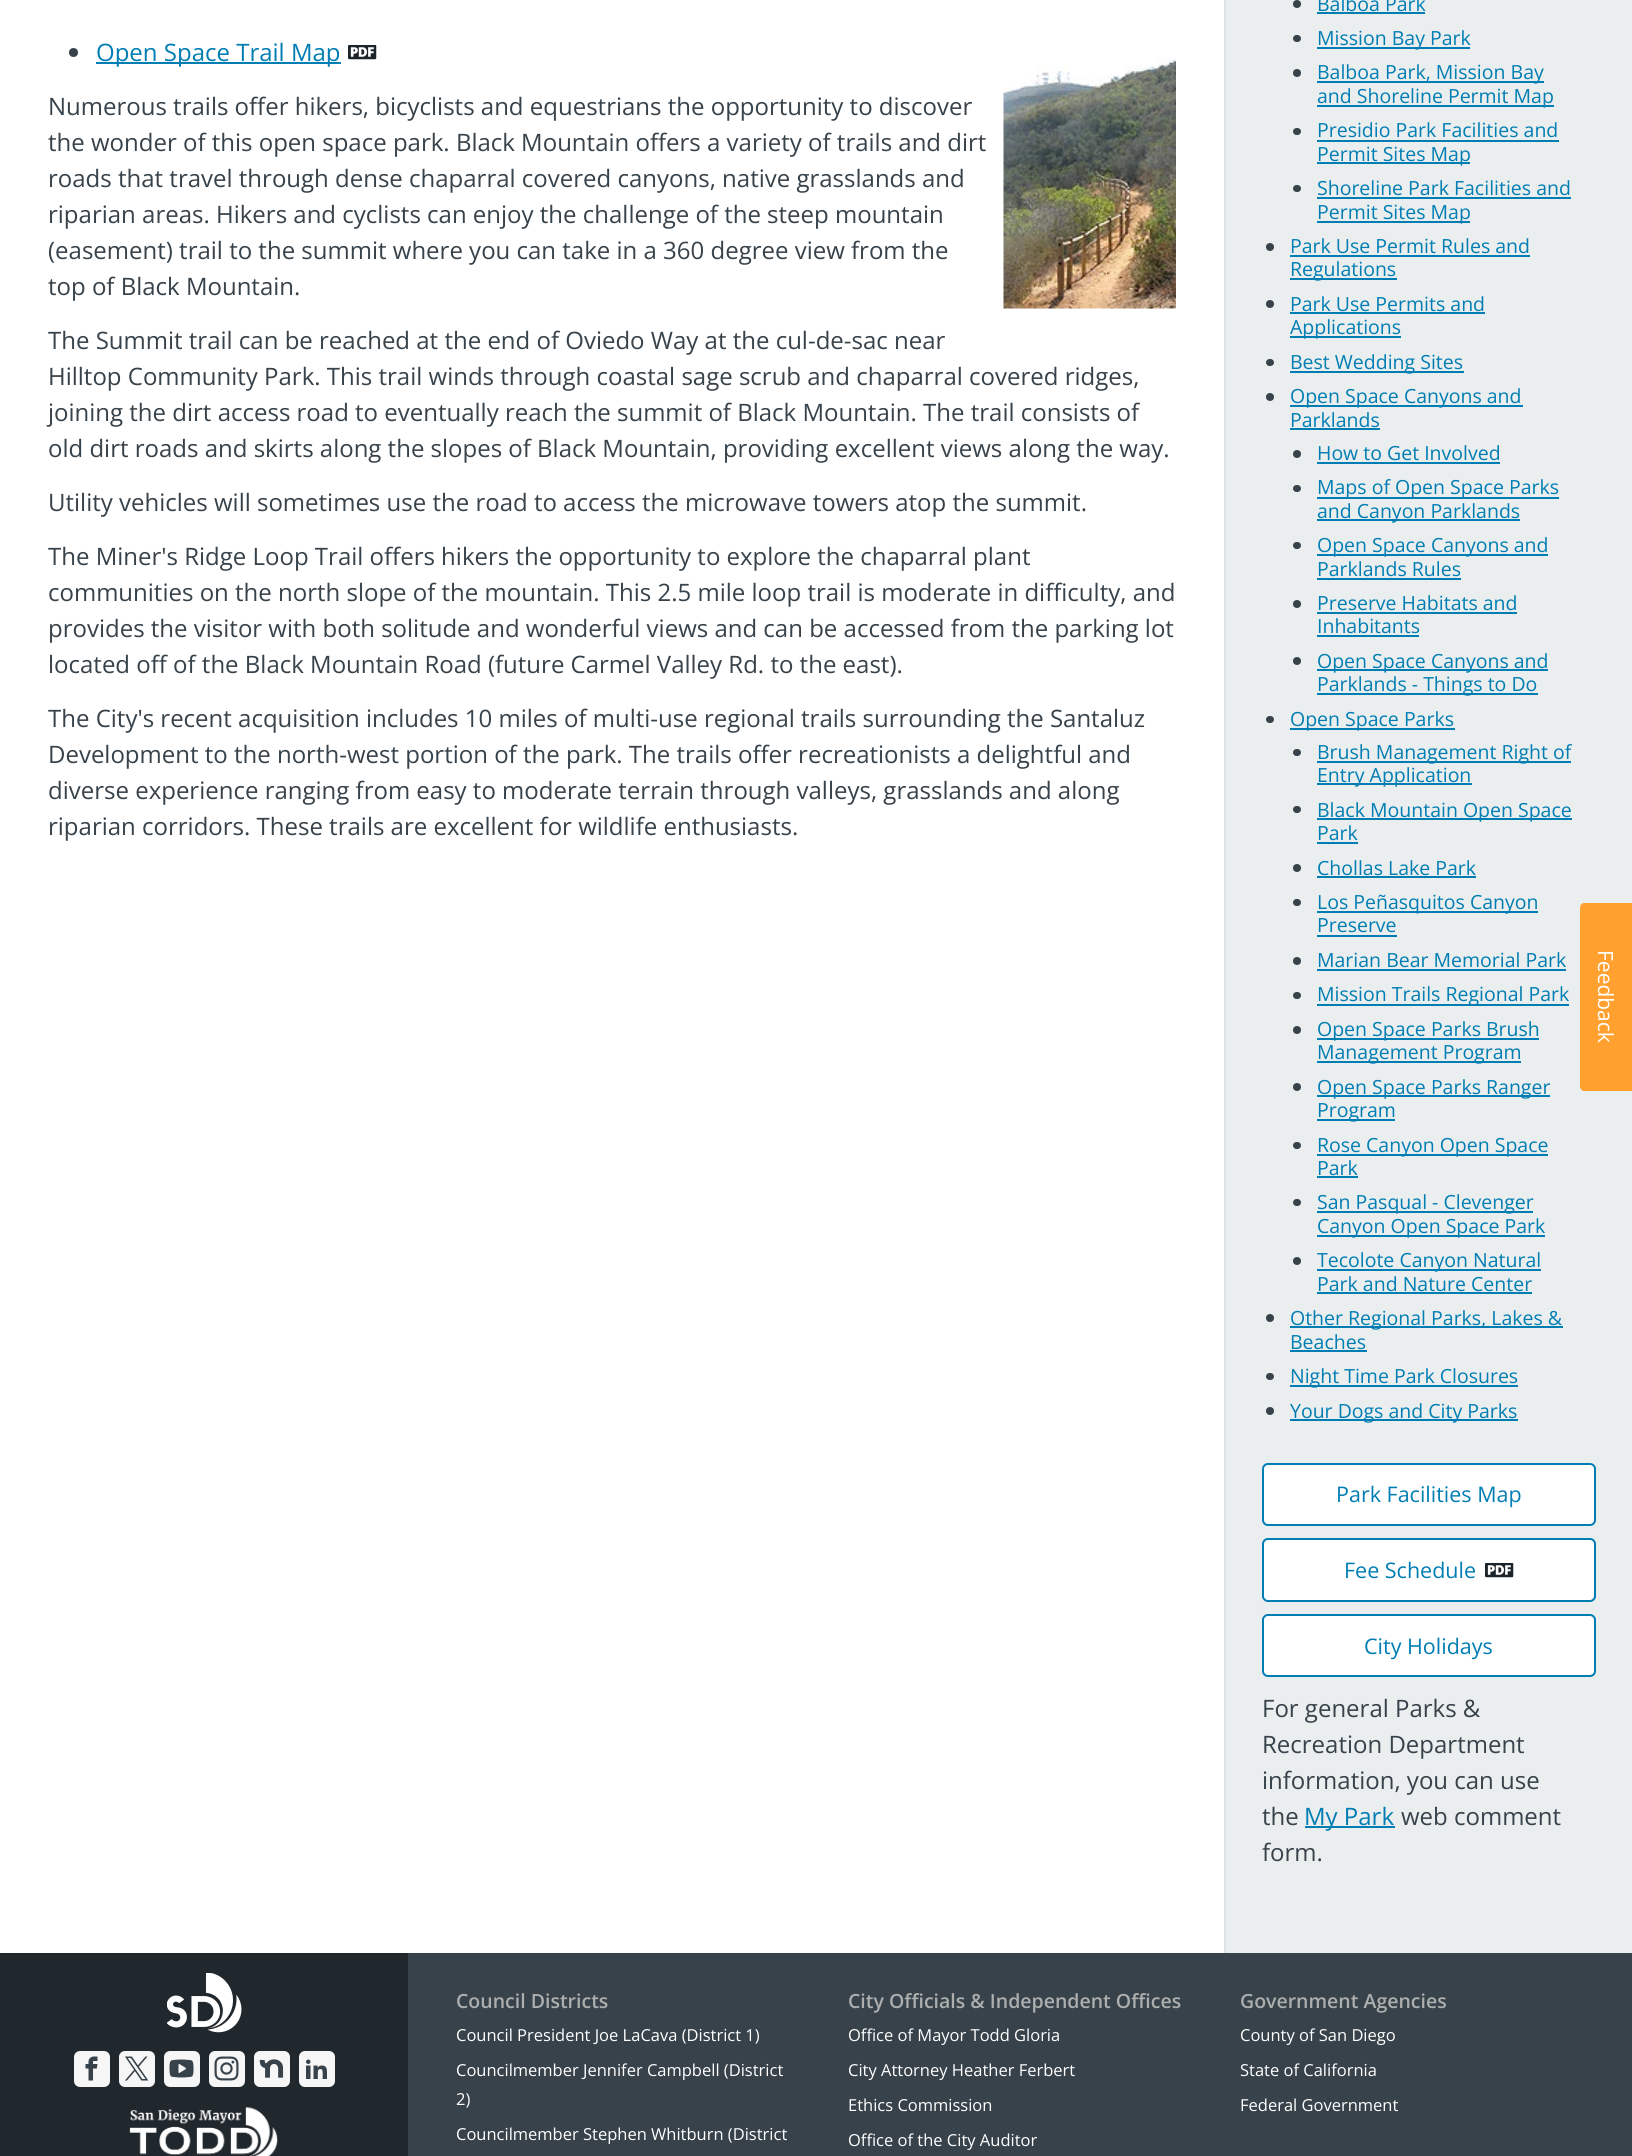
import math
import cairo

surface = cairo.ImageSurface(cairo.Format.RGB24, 1632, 2156)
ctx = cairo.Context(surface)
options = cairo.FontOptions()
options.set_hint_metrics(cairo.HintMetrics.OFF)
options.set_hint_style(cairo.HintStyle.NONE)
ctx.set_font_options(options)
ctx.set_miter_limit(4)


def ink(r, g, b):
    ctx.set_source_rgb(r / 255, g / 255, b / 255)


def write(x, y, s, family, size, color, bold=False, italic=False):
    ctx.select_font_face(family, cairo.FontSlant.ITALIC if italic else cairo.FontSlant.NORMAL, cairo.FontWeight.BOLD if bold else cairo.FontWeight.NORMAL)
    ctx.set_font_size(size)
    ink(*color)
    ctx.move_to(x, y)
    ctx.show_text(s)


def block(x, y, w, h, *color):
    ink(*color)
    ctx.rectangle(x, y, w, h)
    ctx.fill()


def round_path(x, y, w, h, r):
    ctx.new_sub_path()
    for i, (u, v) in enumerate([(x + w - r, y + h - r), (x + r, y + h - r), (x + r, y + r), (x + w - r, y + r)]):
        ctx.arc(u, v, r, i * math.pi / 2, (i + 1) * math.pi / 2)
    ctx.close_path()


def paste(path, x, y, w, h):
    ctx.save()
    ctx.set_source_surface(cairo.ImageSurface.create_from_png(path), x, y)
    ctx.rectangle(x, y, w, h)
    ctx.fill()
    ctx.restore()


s1 = dict(family="Open Sans", size=24, color=(0, 125, 179))
s2 = dict(family="Open Sans", size=24, color=(55, 66, 74))
s3 = dict(family="Open Sans", size=19.5, color=(0, 125, 179))
s4 = dict(family="Open Sans", size=21.5, color=(0, 125, 179))
s5 = dict(family="Open Sans SemiBold", size=19.5, color=(173, 175, 175))
s6 = dict(family="Open Sans", size=16.5, color=(255, 255, 255))
s7 = dict(family="Open Sans", size=21, color=(255, 255, 255))

ink(55, 66, 74)
ctx.paint()
block(0, 0, 1224, 1953, 255, 255, 255)
ink(55, 66, 74)
ctx.arc(73.5, 52.5, 4.5, 0, 2 * math.pi)
ctx.fill()
block(96, 62, 245, 2, 0, 125, 179)
write(96, 61, "Open Space Trail Map", **s1)
paste("pic1.png", 348, 45, 29, 15)
write(48, 115, "Numerous trails offer hikers, bicyclists and equestrians the opportunity to discover", **s2)
write(48, 151, "the wonder of this open space park. Black Mountain offers a variety of trails and dirt", **s2)
write(48, 187, "roads that travel through dense chaparral covered canyons, native grasslands and", **s2)
write(48, 223, "riparian areas. Hikers and cyclists can enjoy the challenge of the steep mountain", **s2)
write(48, 259, "(easement) trail to the summit where you can take in a 360 degree view from the", **s2)
write(48, 295, "top of Black Mountain.", **s2)
paste("pic2.png", 1003, 58, 173, 251)
write(48, 349, "The Summit trail can be reached at the end of Oviedo Way at the cul-de-sac near", **s2)
write(48, 385, "Hilltop Community Park. This trail winds through coastal sage scrub and chaparral covered ridges,", **s2)
write(48, 421, "joining the dirt access road to eventually reach the summit of Black Mountain. The trail consists of", **s2)
write(48, 457, "old dirt roads and skirts along the slopes of Black Mountain, providing excellent views along the way.", **s2)
write(48, 511, "Utility vehicles will sometimes use the road to access the microwave towers atop the summit.", **s2)
write(48, 565, "The Miner's Ridge Loop Trail offers hikers the opportunity to explore the chaparral plant", **s2)
write(48, 601, "communities on the north slope of the mountain. This 2.5 mile loop trail is moderate in difficulty, and", **s2)
write(48, 637, "provides the visitor with both solitude and wonderful views and can be accessed from the parking lot", **s2)
write(48, 673, "located off of the Black Mountain Road (future Carmel Valley Rd. to the east).", **s2)
write(48, 727, "The City's recent acquisition includes 10 miles of multi-use regional trails surrounding the Santaluz", **s2)
write(48, 763, "Development to the north-west portion of the park. The trails offer recreationists a delightful and", **s2)
write(48, 799, "diverse experience ranging from easy to moderate terrain through valleys, grasslands and along", **s2)
write(48, 835, "riparian corridors. These trails are excellent for wildlife enthusiasts.", **s2)
block(1226, 0, 406, 1953, 234, 238, 239)
block(1224, 0, 2, 1953, 221, 226, 229)
ink(55, 66, 74)
ctx.new_path()
ctx.arc(1297, 4, 4, 0, 2 * math.pi)
ctx.fill()
write(1317, 11, "Balboa Park", **s3)
block(1317, 12, 108, 2, 0, 125, 179)
ink(55, 66, 74)
round_path(1293, 35, 8, 7, 3.5)
ctx.fill()
block(1317, 47, 153, 2, 0, 125, 179)
write(1317, 45, "Mission Bay Park", **s3)
ink(55, 66, 74)
ctx.new_path()
ctx.arc(1297, 73, 4, 0, 2 * math.pi)
ctx.fill()
block(1317, 81, 227, 2, 0, 125, 179)
write(1317, 79, "Balboa Park, Mission Bay", **s3)
block(1317, 105, 237, 2, 0, 125, 179)
write(1317, 103, "and Shoreline Permit Map", **s3)
ink(55, 66, 74)
round_path(1293, 128, 8, 7, 3.5)
ctx.fill()
write(1317, 137, "Presidio Park Facilities and", **s3)
block(1317, 140, 242, 2, 0, 125, 179)
block(1317, 162, 153, 2, 0, 125, 179)
write(1317, 161, "Permit Sites Map", **s3)
ink(55, 66, 74)
round_path(1293, 185, 8, 7, 3.5)
ctx.fill()
write(1317, 195, "Shoreline Park Facilities and", **s3)
block(1317, 197, 254, 2, 0, 125, 179)
block(1317, 221, 153, 2, 0, 125, 179)
write(1317, 219, "Permit Sites Map", **s3)
ink(55, 66, 74)
ctx.new_path()
ctx.arc(1270, 247, 4, 0, 2 * math.pi)
ctx.fill()
write(1290, 253, "Park Use Permit Rules and", **s3)
block(1290, 255, 240, 2, 0, 125, 179)
block(1290, 278, 107, 2, 0, 125, 179)
write(1290, 276, "Regulations", **s3)
ink(55, 66, 74)
ctx.new_path()
ctx.arc(1270, 304, 4, 0, 2 * math.pi)
ctx.fill()
write(1290, 311, "Park Use Permits and", **s3)
block(1290, 312, 195, 2, 0, 125, 179)
block(1290, 336, 111, 2, 0, 125, 179)
write(1290, 334, "Applications", **s3)
ink(55, 66, 74)
round_path(1266, 359, 8, 7, 3.5)
ctx.fill()
block(1290, 371, 174, 2, 0, 125, 179)
write(1290, 369, "Best Wedding Sites", **s3)
ink(55, 66, 74)
ctx.new_path()
ctx.arc(1270, 397, 4, 0, 2 * math.pi)
ctx.fill()
block(1290, 405, 233, 2, 0, 125, 179)
write(1290, 403, "Open Space Canyons and", **s3)
write(1290, 427, "Parklands", **s3)
block(1290, 428, 90, 2, 0, 125, 179)
ink(55, 66, 74)
ctx.new_path()
ctx.arc(1297, 454, 4, 0, 2 * math.pi)
ctx.fill()
write(1317, 460, "How to Get Involved", **s3)
block(1317, 462, 183, 2, 0, 125, 179)
ink(55, 66, 74)
round_path(1293, 485, 8, 7, 3.5)
ctx.fill()
block(1317, 497, 242, 2, 0, 125, 179)
write(1317, 494, "Maps of Open Space Parks", **s3)
block(1317, 519, 203, 2, 0, 125, 179)
write(1317, 518, "and Canyon Parklands", **s3)
ink(55, 66, 74)
round_path(1293, 542, 8, 7, 3.5)
ctx.fill()
block(1317, 554, 231, 2, 0, 125, 179)
write(1317, 552, "Open Space Canyons and", **s3)
write(1317, 576, "Parklands Rules", **s3)
block(1317, 578, 144, 2, 0, 125, 179)
ink(55, 66, 74)
ctx.new_path()
ctx.arc(1297, 604, 4, 0, 2 * math.pi)
ctx.fill()
write(1317, 610, "Preserve Habitats and", **s3)
block(1317, 612, 200, 2, 0, 125, 179)
write(1317, 633, "Inhabitants", **s3)
block(1317, 635, 102, 2, 0, 125, 179)
ink(55, 66, 74)
ctx.new_path()
ctx.arc(1297, 661, 4, 0, 2 * math.pi)
ctx.fill()
block(1317, 669, 231, 2, 0, 125, 179)
write(1317, 668, "Open Space Canyons and", **s3)
block(1317, 693, 221, 2, 0, 125, 179)
write(1317, 691, "Parklands - Things to Do", **s3)
ink(55, 66, 74)
round_path(1266, 716, 8, 7, 3.5)
ctx.fill()
block(1290, 728, 165, 2, 0, 125, 179)
write(1290, 726, "Open Space Parks", **s3)
ink(55, 66, 74)
round_path(1293, 749, 8, 7, 3.5)
ctx.fill()
block(1317, 761, 254, 2, 0, 125, 179)
write(1317, 759, "Brush Management Right of", **s3)
block(1317, 783, 155, 2, 0, 125, 179)
write(1317, 782, "Entry Application", **s3)
ink(55, 66, 74)
round_path(1293, 806, 8, 7, 3.5)
ctx.fill()
block(1317, 818, 255, 2, 0, 125, 179)
write(1317, 817, "Black Mountain Open Space", **s3)
write(1317, 840, "Park", **s3)
block(1317, 842, 41, 2, 0, 125, 179)
ink(55, 66, 74)
ctx.new_path()
ctx.arc(1297, 868, 4, 0, 2 * math.pi)
ctx.fill()
write(1317, 875, "Chollas Lake Park", **s3)
block(1317, 876, 159, 2, 0, 125, 179)
ink(55, 66, 74)
round_path(1293, 899, 8, 7, 3.5)
ctx.fill()
block(1317, 911, 221, 2, 0, 125, 179)
write(1317, 909, "Los Peñasquitos Canyon", **s3)
write(1317, 932, "Preserve", **s3)
block(1317, 935, 80, 2, 0, 125, 179)
ink(55, 66, 74)
ctx.new_path()
ctx.arc(1297, 961, 4, 0, 2 * math.pi)
ctx.fill()
write(1317, 967, "Marian Bear Memorial Park", **s3)
block(1317, 969, 249, 2, 0, 125, 179)
ink(55, 66, 74)
round_path(1293, 992, 8, 7, 3.5)
ctx.fill()
block(1317, 1004, 252, 2, 0, 125, 179)
write(1317, 1001, "Mission Trails Regional Park", **s3)
ink(55, 66, 74)
ctx.new_path()
ctx.arc(1297, 1030, 4, 0, 2 * math.pi)
ctx.fill()
block(1317, 1038, 222, 2, 0, 125, 179)
write(1317, 1036, "Open Space Parks Brush", **s3)
block(1317, 1061, 204, 2, 0, 125, 179)
write(1317, 1059, "Management Program", **s3)
ink(55, 66, 74)
ctx.new_path()
ctx.arc(1297, 1087, 4, 0, 2 * math.pi)
ctx.fill()
block(1317, 1095, 233, 2, 0, 125, 179)
write(1317, 1094, "Open Space Parks Ranger", **s3)
block(1317, 1119, 78, 2, 0, 125, 179)
write(1317, 1117, "Program", **s3)
ink(55, 66, 74)
round_path(1293, 1142, 8, 7, 3.5)
ctx.fill()
block(1317, 1154, 231, 2, 0, 125, 179)
write(1317, 1152, "Rose Canyon Open Space", **s3)
write(1317, 1175, "Park", **s3)
block(1317, 1176, 41, 2, 0, 125, 179)
ink(55, 66, 74)
round_path(1293, 1199, 8, 7, 3.5)
ctx.fill()
block(1317, 1211, 216, 2, 0, 125, 179)
write(1317, 1209, "San Pasqual - Clevenger", **s3)
block(1317, 1235, 228, 2, 0, 125, 179)
write(1317, 1233, "Canyon Open Space Park", **s3)
ink(55, 66, 74)
ctx.new_path()
ctx.arc(1297, 1261, 4, 0, 2 * math.pi)
ctx.fill()
block(1317, 1269, 224, 2, 0, 125, 179)
write(1317, 1267, "Tecolote Canyon Natural", **s3)
write(1317, 1291, "Park and Nature Center", **s3)
block(1317, 1292, 215, 2, 0, 125, 179)
ink(55, 66, 74)
ctx.new_path()
ctx.arc(1270, 1318, 4, 0, 2 * math.pi)
ctx.fill()
block(1290, 1326, 273, 2, 0, 125, 179)
write(1290, 1325, "Other Regional Parks, Lakes &", **s3)
write(1290, 1349, "Beaches", **s3)
block(1290, 1350, 77, 2, 0, 125, 179)
ink(55, 66, 74)
round_path(1266, 1373, 8, 7, 3.5)
ctx.fill()
block(1290, 1385, 228, 2, 0, 125, 179)
write(1290, 1383, "Night Time Park Closures", **s3)
ink(55, 66, 74)
ctx.new_path()
ctx.arc(1270, 1411, 4, 0, 2 * math.pi)
ctx.fill()
block(1290, 1419, 228, 2, 0, 125, 179)
write(1290, 1418, "Your Dogs and City Parks", **s3)
ink(255, 255, 255)
round_path(1263, 1464, 332, 61, 5)
ctx.fill_preserve()
ink(0, 125, 179)
ctx.stroke()
write(1336, 1502, "Park Facilities Map", **s4)
ink(255, 255, 255)
round_path(1263, 1539, 332, 62, 5)
ctx.fill_preserve()
ink(0, 125, 179)
ctx.stroke()
write(1344, 1578, "Fee Schedule", **s4)
paste("pic1.png", 1485, 1563, 29, 15)
ink(255, 255, 255)
round_path(1263, 1615, 332, 61, 5)
ctx.fill_preserve()
ink(0, 125, 179)
ctx.stroke()
write(1364, 1654, "City Holidays", **s4)
write(1262, 1717, "For general Parks &", **s2)
write(1262, 1753, "Recreation Department", **s2)
write(1262, 1789, "information, you can use", **s2)
write(1262, 1825, "the", **s2)
block(1305, 1826, 90, 2, 0, 125, 179)
write(1304, 1825, "My Park", **s1)
write(1401, 1825, "web comment", **s2)
write(1262, 1861, "form.", **s2)
block(0, 1953, 408, 203, 33, 40, 45)
paste("pic3.png", 167, 1973, 75, 60)
ink(246, 246, 246)
round_path(74, 2051, 36, 36, 6)
ctx.fill()
paste("pic4.png", 85, 2056, 13, 25)
round_path(119, 2051, 36, 36, 6)
ctx.fill()
paste("pic5.png", 125, 2056, 24, 25)
round_path(164, 2051, 36, 36, 6)
ctx.fill()
paste("pic6.png", 169, 2059, 25, 19)
round_path(209, 2051, 36, 36, 6)
ctx.fill()
paste("pic7.png", 214, 2056, 25, 25)
round_path(254, 2051, 36, 36, 6)
ctx.fill()
paste("pic8.png", 259, 2059, 25, 19)
round_path(299, 2051, 36, 36, 6)
ctx.fill()
paste("pic9.png", 306, 2059, 21, 20)
paste("pic10.png", 129, 2107, 149, 49)
write(456, 2008, "Council Districts", **s5)
write(456, 2041, "Council President Joe LaCava (District 1)", **s6)
write(456, 2076, "Councilmember Jennifer Campbell (District", **s6)
write(456, 2105, "2)", **s6)
write(456, 2140, "Councilmember Stephen Whitburn (District", **s6)
write(848, 2008, "City Officials & Independent Offices", **s5)
write(848, 2041, "Office of Mayor Todd Gloria", **s6)
write(848, 2076, "City Attorney Heather Ferbert", **s6)
write(848, 2111, "Ethics Commission", **s6)
write(848, 2146, "Office of the City Auditor", **s6)
write(1240, 2008, "Government Agencies", **s5)
write(1240, 2041, "County of San Diego", **s6)
write(1240, 2076, "State of California", **s6)
write(1240, 2111, "Federal Government", **s6)
ink(255, 160, 47)
ctx.new_path()
ctx.move_to(1632, 903)
ctx.line_to(1632, 1091)
ctx.line_to(1584, 1091)
ctx.curve_to(1582, 1091, 1580, 1089, 1580, 1086)
ctx.line_to(1580, 908)
ctx.curve_to(1580, 905, 1582, 903, 1584, 903)
ctx.close_path()
ctx.fill()
ctx.save()
ctx.translate(1598, 950)
ctx.rotate(90 * math.pi / 180)
write(0, 0, "Feedback", **s7)
ctx.restore()
surface.write_to_png("screenshot.png")
